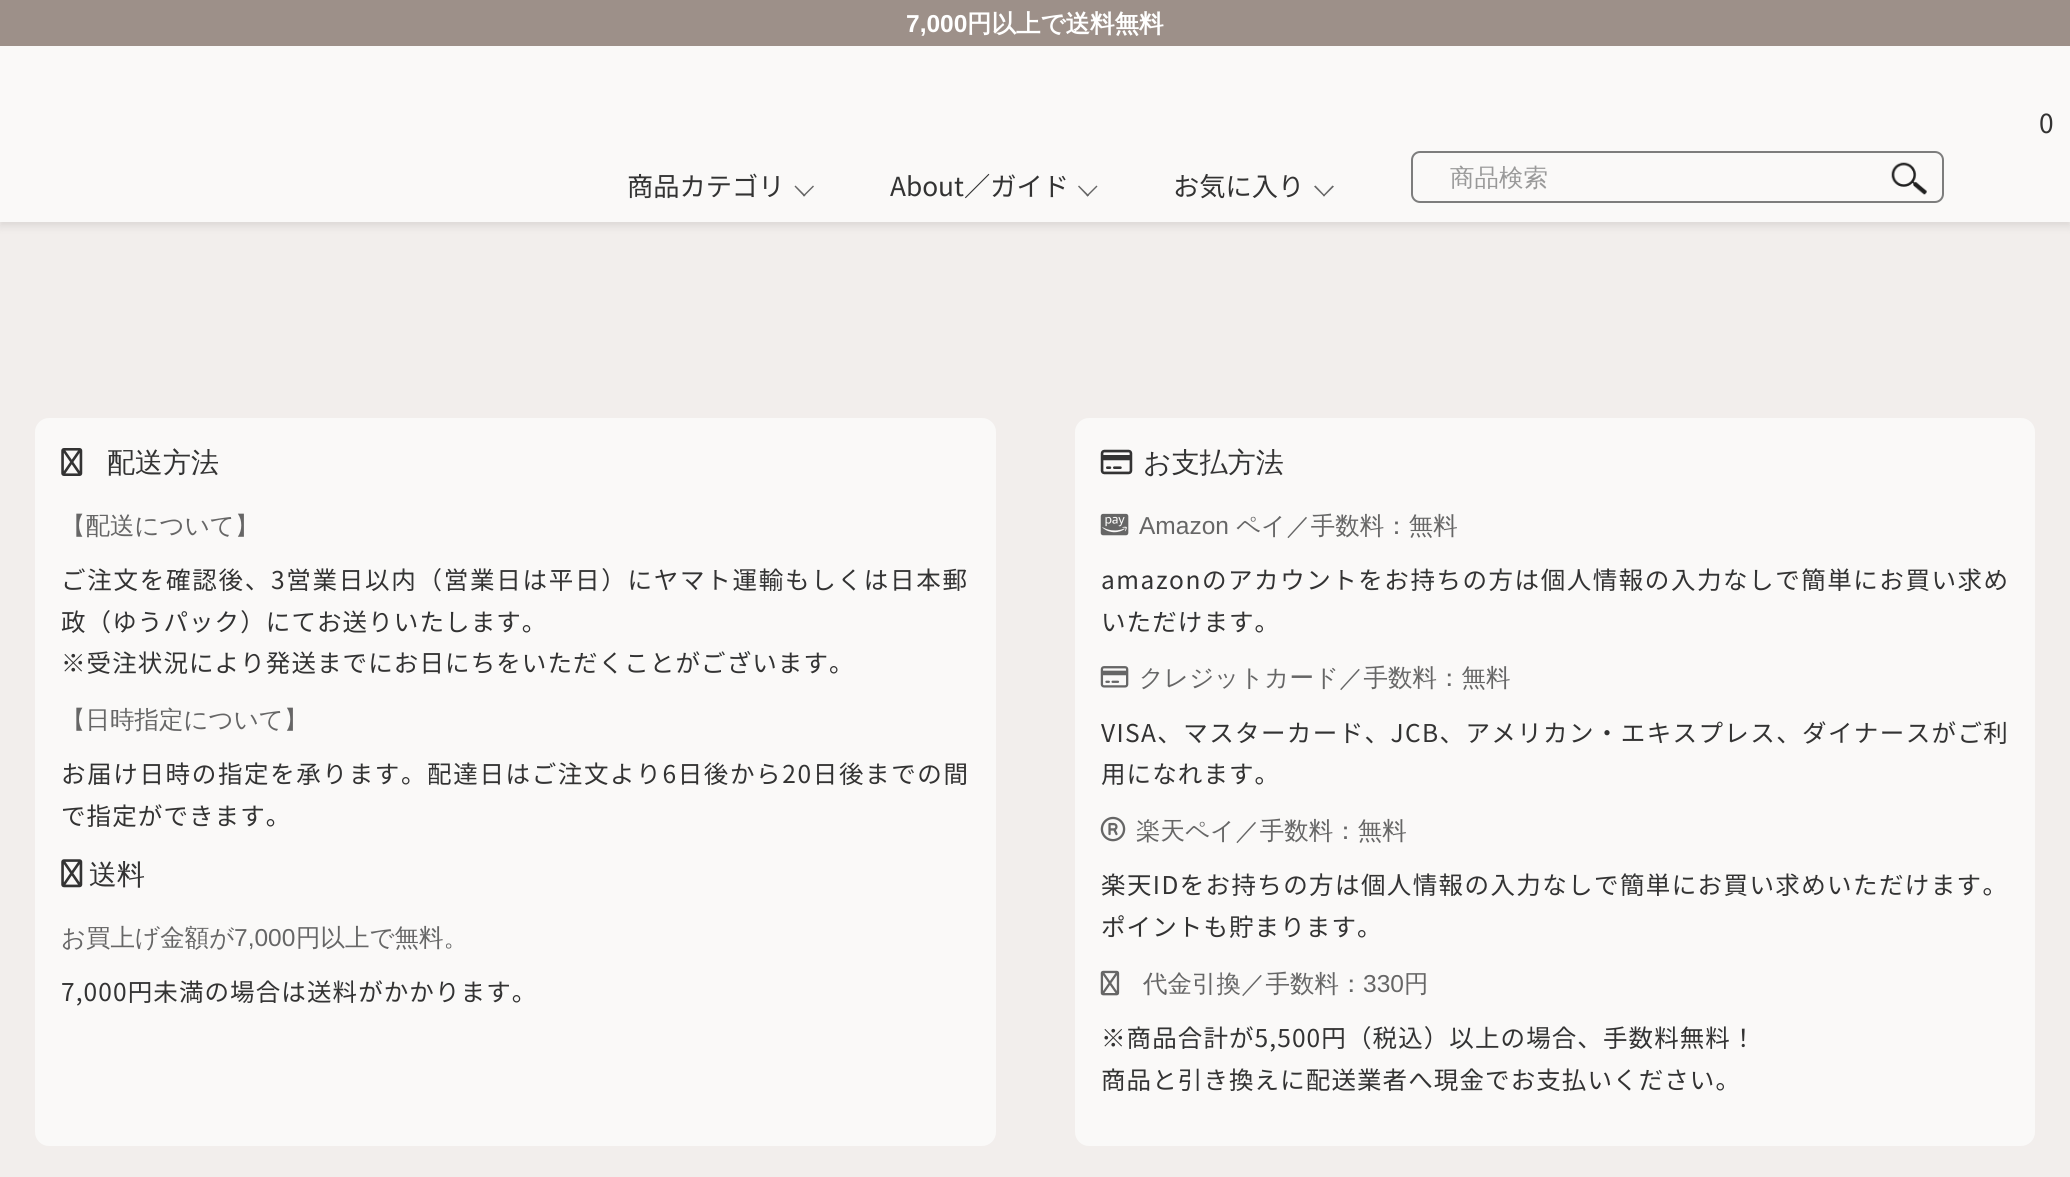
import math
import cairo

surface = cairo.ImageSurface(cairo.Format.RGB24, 2070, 1177)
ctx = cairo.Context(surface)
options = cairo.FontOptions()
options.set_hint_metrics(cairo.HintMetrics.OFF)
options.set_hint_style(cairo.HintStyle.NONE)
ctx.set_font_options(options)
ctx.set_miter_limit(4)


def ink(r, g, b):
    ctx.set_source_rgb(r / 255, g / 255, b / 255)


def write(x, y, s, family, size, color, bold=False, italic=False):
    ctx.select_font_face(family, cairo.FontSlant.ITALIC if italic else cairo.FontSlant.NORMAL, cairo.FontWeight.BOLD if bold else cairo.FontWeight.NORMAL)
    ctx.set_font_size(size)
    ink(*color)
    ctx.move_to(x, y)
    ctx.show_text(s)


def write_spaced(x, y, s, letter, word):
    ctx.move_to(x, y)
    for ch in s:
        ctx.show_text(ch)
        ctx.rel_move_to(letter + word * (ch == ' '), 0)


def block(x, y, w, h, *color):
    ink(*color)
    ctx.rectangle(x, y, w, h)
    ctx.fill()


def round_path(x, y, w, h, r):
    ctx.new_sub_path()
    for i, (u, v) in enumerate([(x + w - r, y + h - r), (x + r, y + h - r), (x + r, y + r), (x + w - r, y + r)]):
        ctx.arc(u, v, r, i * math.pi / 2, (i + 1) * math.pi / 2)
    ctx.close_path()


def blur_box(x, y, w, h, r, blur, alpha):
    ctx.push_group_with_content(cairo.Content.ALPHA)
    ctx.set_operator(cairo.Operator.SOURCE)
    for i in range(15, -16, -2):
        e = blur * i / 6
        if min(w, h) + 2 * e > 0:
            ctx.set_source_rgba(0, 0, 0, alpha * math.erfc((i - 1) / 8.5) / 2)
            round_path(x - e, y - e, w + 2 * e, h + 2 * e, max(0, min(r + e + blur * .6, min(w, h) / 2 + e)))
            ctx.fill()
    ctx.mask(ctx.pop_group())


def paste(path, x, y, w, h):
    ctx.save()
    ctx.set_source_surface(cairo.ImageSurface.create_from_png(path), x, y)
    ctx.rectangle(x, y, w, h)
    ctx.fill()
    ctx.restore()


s1 = dict(family="Liberation Sans", size=24.5, color=(255, 255, 255), bold=True)
s2 = dict(family="WenQuanYi Zen Hei", size=24.5, color=(255, 255, 255), bold=True)
s3 = dict(family="Noto Sans JP", size=26.25, color=(51, 51, 51))
s4 = dict(family="WenQuanYi Zen Hei Medium", size=24.5, color=(153, 153, 153))
s5 = dict(family="WenQuanYi Zen Hei Medium", size=28, color=(51, 51, 51))
s6 = dict(family="WenQuanYi Zen Hei Medium", size=24.5, color=(102, 102, 102))
s7 = dict(family="Liberation Sans", size=24.5, color=(102, 102, 102))

ink(242, 238, 236)
ctx.paint()
ink(0, 0, 0)
blur_box(0, 49, 2070, 177, 0, 4.5, 0.1)
block(0, 0, 2070, 46, 157, 144, 137)
write(906, 32, "7,000", **s1)
write(967, 32, "円以上で送料無料", **s2)
block(0, 46, 2070, 176, 250, 249, 248)
write(2039, 133, "0", **s3)
write(627, 196, "商品カテゴリ", **s3)
ink(102, 102, 102)
ctx.new_path()
ctx.move_to(813, 185.5)
ctx.line_to(814, 186.5)
ctx.line_to(804, 196.5)
ctx.line_to(803, 195.5)
ctx.close_path()
ctx.fill()
ctx.new_path()
ctx.move_to(795.5, 185.5)
ctx.line_to(805.5, 195.5)
ctx.line_to(804, 196.5)
ctx.line_to(794.5, 186.5)
ctx.close_path()
ctx.fill()
write(890, 196, "About／ガイド", **s3)
ink(102, 102, 102)
ctx.new_path()
ctx.move_to(1096.5, 185.5)
ctx.line_to(1097.5, 186.5)
ctx.line_to(1087.5, 196.5)
ctx.line_to(1086.5, 195.5)
ctx.close_path()
ctx.fill()
ctx.new_path()
ctx.move_to(1079, 185.5)
ctx.line_to(1089, 195.5)
ctx.line_to(1087.5, 196.5)
ctx.line_to(1078, 186.5)
ctx.close_path()
ctx.fill()
write(1173, 196, "お気に入り", **s3)
ink(102, 102, 102)
ctx.new_path()
ctx.move_to(1332.5, 185.5)
ctx.line_to(1334, 186.5)
ctx.line_to(1324, 196.5)
ctx.line_to(1323, 195.5)
ctx.close_path()
ctx.fill()
ctx.new_path()
ctx.move_to(1315.5, 185.5)
ctx.line_to(1325, 195.5)
ctx.line_to(1324, 196.5)
ctx.line_to(1314, 186.5)
ctx.close_path()
ctx.fill()
round_path(1412, 152, 531, 50, 8)
ink(125, 125, 125)
ctx.stroke()
write(1450, 186, "商品検索", **s4)
paste("pic1.png", 1891, 162, 36, 33)
ink(250, 249, 248)
round_path(35, 418, 961, 728, 14)
ctx.fill()
paste("pic2.png", 61, 448, 22, 28)
write(107, 472, "配送方法", **s5)
write(61, 534, "【配送について】", **s6)
ctx.select_font_face("Noto Sans JP")
ink(51, 51, 51)
write_spaced(61, 589, "ご注文を確認後、3営業日以内（営業日は平日）にヤマト運輸もしくは日本郵", 1.75, 0)
write_spaced(61, 631, "政（ゆうパック）にてお送りいたします。", 1.1, 0)
write_spaced(61, 672, "※受注状況により発送までにお日にちをいただくことがございます。", 1.1, 0)
write(61, 728, "【日時指定について】", **s6)
ctx.select_font_face("Noto Sans JP")
ink(51, 51, 51)
write_spaced(61, 783, "お届け日時の指定を承ります。配達日はご注文より6日後から20日後までの間", 1.65, 0)
write_spaced(61, 825, "で指定ができます。", 1.1, 0)
paste("pic3.png", 61, 859, 22, 29)
write(89, 884, "送料", **s5)
write(61, 946, "お買上げ金額が", **s6)
write(234, 946, "7,000", **s7)
write(296, 946, "円以上で無料。", **s6)
ctx.select_font_face("Noto Sans JP")
ink(51, 51, 51)
write_spaced(61, 1001, "7,000円未満の場合は送料がかかります。", 1.1, 0)
ink(250, 249, 248)
round_path(1075, 418, 960, 728, 14)
ctx.fill()
paste("pic4.png", 1100, 449, 33, 26)
write(1143, 472, "お支払方法", **s5)
paste("pic5.png", 1100, 513, 29, 23)
write(1139, 534, "Amazon", **s7)
write(1236, 534, "ペイ／手数料：無料", **s6)
ctx.select_font_face("Noto Sans JP")
ink(51, 51, 51)
write_spaced(1101, 589, "amazonのアカウントをお持ちの方は個人情報の入力なしで簡単にお買い求め", 1.55, 0)
write_spaced(1101, 631, "いただけます。", 1.1, 0)
paste("pic6.png", 1100, 666, 29, 22)
write(1139, 686, "クレジットカード／手数料：無料", **s6)
ctx.select_font_face("Noto Sans JP")
ink(51, 51, 51)
write_spaced(1101, 742, "VISA、マスターカード、JCB、アメリカン・エキスプレス、ダイナースがご利", 1.4, 0)
write_spaced(1101, 783, "用になれます。", 1.1, 0)
paste("pic7.png", 1100, 816, 26, 26)
write(1136, 839, "楽天ペイ／手数料：無料", **s6)
ctx.select_font_face("Noto Sans JP")
ink(51, 51, 51)
write_spaced(1101, 894, "楽天IDをお持ちの方は個人情報の入力なしで簡単にお買い求めいただけます。", 1.4, 0)
write_spaced(1101, 936, "ポイントも貯まります。", 1.1, 0)
paste("pic8.png", 1100, 970, 20, 26)
write(1143, 992, "代金引換／手数料：", **s6)
write(1363, 992, "330", **s7)
write(1404, 992, "円", **s6)
ctx.select_font_face("Noto Sans JP")
ink(51, 51, 51)
write_spaced(1101, 1047, "※商品合計が5,500円（税込）以上の場合、手数料無料！", 1.1, 0)
write_spaced(1101, 1089, "商品と引き換えに配送業者へ現金でお支払いください。", 1.1, 0)
surface.write_to_png("screenshot.png")
